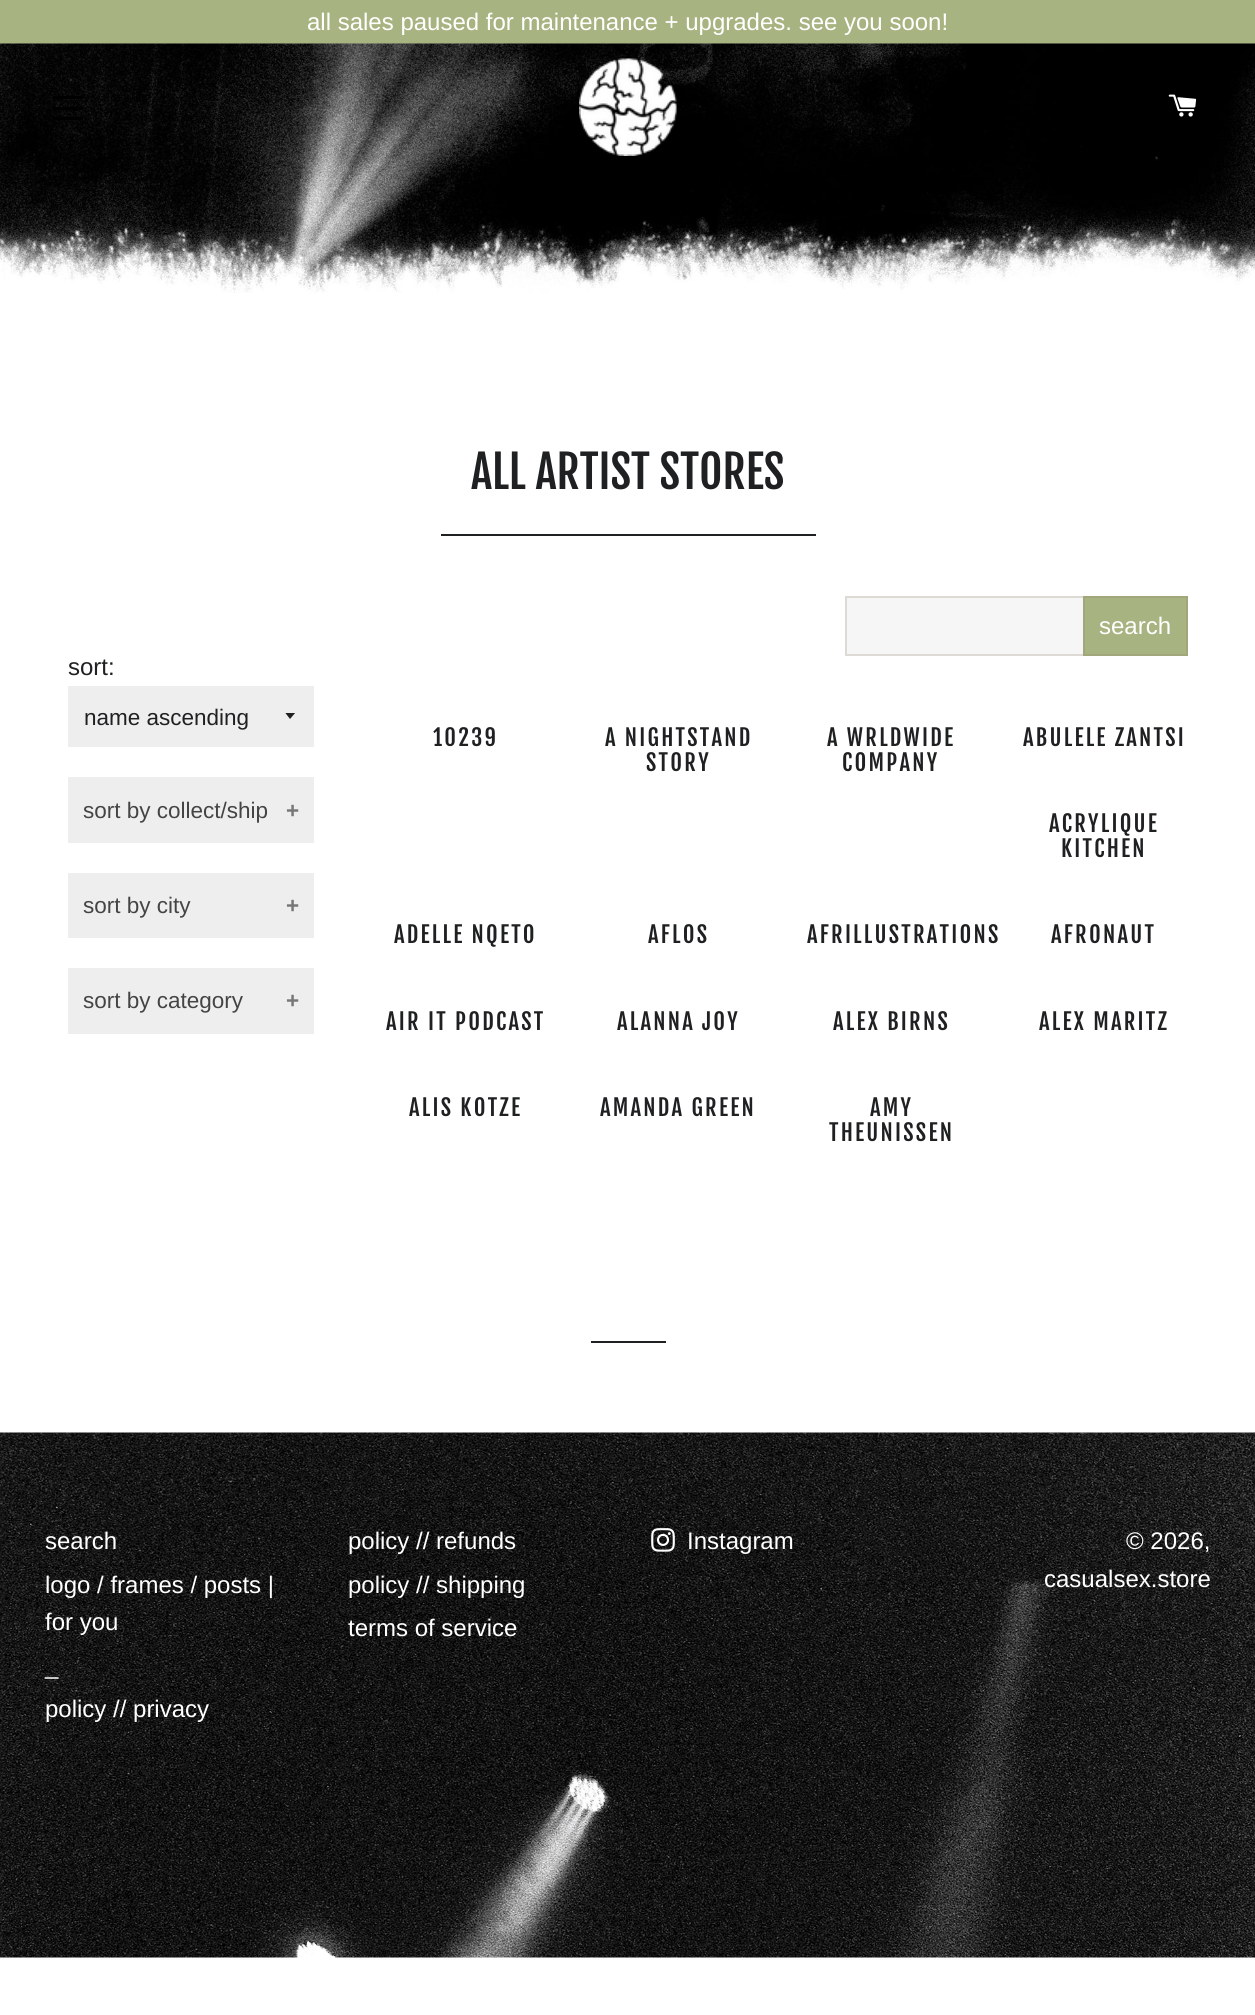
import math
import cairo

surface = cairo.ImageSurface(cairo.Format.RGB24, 1255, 2015)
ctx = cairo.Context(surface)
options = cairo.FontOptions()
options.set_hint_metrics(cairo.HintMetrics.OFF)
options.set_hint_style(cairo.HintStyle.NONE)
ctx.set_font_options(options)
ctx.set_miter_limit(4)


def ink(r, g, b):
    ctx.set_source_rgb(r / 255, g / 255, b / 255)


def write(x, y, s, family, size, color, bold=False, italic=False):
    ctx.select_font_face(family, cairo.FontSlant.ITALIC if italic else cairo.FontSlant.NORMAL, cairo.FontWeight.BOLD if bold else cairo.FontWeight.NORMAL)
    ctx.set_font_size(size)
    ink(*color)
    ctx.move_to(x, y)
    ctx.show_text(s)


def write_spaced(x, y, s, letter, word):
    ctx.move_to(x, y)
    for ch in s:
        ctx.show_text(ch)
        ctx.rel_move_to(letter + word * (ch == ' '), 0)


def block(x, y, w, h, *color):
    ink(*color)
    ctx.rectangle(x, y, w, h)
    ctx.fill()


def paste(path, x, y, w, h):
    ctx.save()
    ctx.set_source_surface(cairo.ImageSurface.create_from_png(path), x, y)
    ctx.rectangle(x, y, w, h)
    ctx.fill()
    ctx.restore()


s1 = dict(family="Liberation Sans", size=24, color=(255, 255, 255))
s2 = dict(family="Fjalla One", size=45, color=(31, 32, 33))
s3 = dict(family="Liberation Sans", size=24, color=(31, 32, 33))
s4 = dict(family="Liberation Sans", size=22.5, color=(31, 32, 33))
s5 = dict(family="Liberation Sans", size=22.5, color=(68, 68, 68))
s6 = dict(family="Liberation Sans", size=22.5, color=(119, 119, 119), bold=True)

ink(255, 255, 255)
ctx.paint()
block(0, 0, 1255, 44, 167, 179, 128)
write(307, 30, "all sales paused for maintenance + upgrades. see you soon!", **s1)
paste("pic1.png", 0, 43, 1255, 250)
block(53, 96, 30, 3, 0, 0, 0)
block(53, 107, 30, 3, 0, 0, 0)
block(53, 117, 30, 3, 0, 0, 0)
paste("pic2.png", 579, 58, 98, 98)
paste("pic3.png", 1168, 94, 29, 23)
write(471, 489, "ALL ARTIST STORES", **s2)
block(441, 534, 375, 2, 31, 32, 33)
block(847, 598, 236, 56, 246, 246, 246)
ctx.rectangle(846, 597, 239, 58)
ink(221, 217, 212)
ctx.stroke()
ink(167, 179, 128)
ctx.rectangle(1084, 597, 103, 58)
ctx.fill_preserve()
ink(162, 166, 123)
ctx.stroke()
write(1099, 634, "search", **s1)
write(68, 675, "sort:", **s3)
block(68, 686, 246, 61, 238, 238, 238)
ctx.save()
ctx.rectangle(285, 713, 12, 7)
ctx.clip()
ink(31, 32, 33)
ctx.new_path()
ctx.move_to(285, 712.5)
ctx.line_to(290, 719)
ctx.line_to(295.5, 712.5)
ctx.close_path()
ctx.fill()
ctx.restore()
write(84, 725, "name ascending", **s4)
block(68, 777, 246, 66, 238, 238, 238)
write(83, 818, "sort by collect/ship", **s5)
write(286, 818, "+", **s6)
block(68, 873, 246, 65, 238, 238, 238)
write(83, 913, "sort by city", **s5)
write(286, 913, "+", **s6)
block(68, 968, 246, 66, 238, 238, 238)
write(83, 1008, "sort by category", **s5)
write(286, 1008, "+", **s6)
ctx.select_font_face("Fjalla One")
ink(31, 32, 33)
write_spaced(433, 746, "10239", 2.25, 0)
write_spaced(605, 746, "A NIGHTSTAND", 2.25, 0)
write_spaced(646, 771, "STORY", 2.25, 0)
write_spaced(827, 746, "A WRLDWIDE", 2.25, 0)
write_spaced(842, 771, "COMPANY", 2.25, 0)
write_spaced(1023, 746, "ABULELE ZANTSI", 2.25, 0)
write_spaced(1049, 832, "ACRYLIQUE", 2.25, 0)
write_spaced(1061, 857, "KITCHEN", 2.25, 0)
write_spaced(394, 943, "ADELLE NQETO", 2.25, 0)
write_spaced(648, 943, "AFLOS", 2.25, 0)
write_spaced(807, 943, "AFRILLUSTRATIONS", 2.25, 0)
write_spaced(1051, 943, "AFRONAUT", 2.25, 0)
write_spaced(386, 1030, "AIR IT PODCAST", 2.25, 0)
write_spaced(617, 1030, "ALANNA JOY", 2.25, 0)
write_spaced(833, 1030, "ALEX BIRNS", 2.25, 0)
write_spaced(1039, 1030, "ALEX MARITZ", 2.25, 0)
write_spaced(409, 1116, "ALIS KOTZE", 2.25, 0)
write_spaced(600, 1116, "AMANDA GREEN", 2.25, 0)
write_spaced(870, 1116, "AMY", 2.25, 0)
write_spaced(829, 1141, "THEUNISSEN", 2.25, 0)
block(591, 1341, 75, 2, 31, 32, 33)
paste("pic4.png", 0, 1432, 1255, 526)
write(45, 1549, "search", **s1)
write(45, 1593, "logo / frames / posts |", **s1)
write(45, 1630, "for you", **s1)
write(45, 1674, "_", **s1)
write(45, 1717, "policy // privacy", **s1)
write(348, 1549, "policy // refunds", **s1)
write(348, 1593, "policy // shipping", **s1)
write(348, 1636, "terms of service", **s1)
paste("pic5.png", 651, 1528, 24, 24)
write(687, 1549, "Instagram", **s1)
write(1126, 1549, "© 2026,", **s1)
write(1044, 1587, "casualsex.store", **s1)
surface.write_to_png("screenshot.png")
